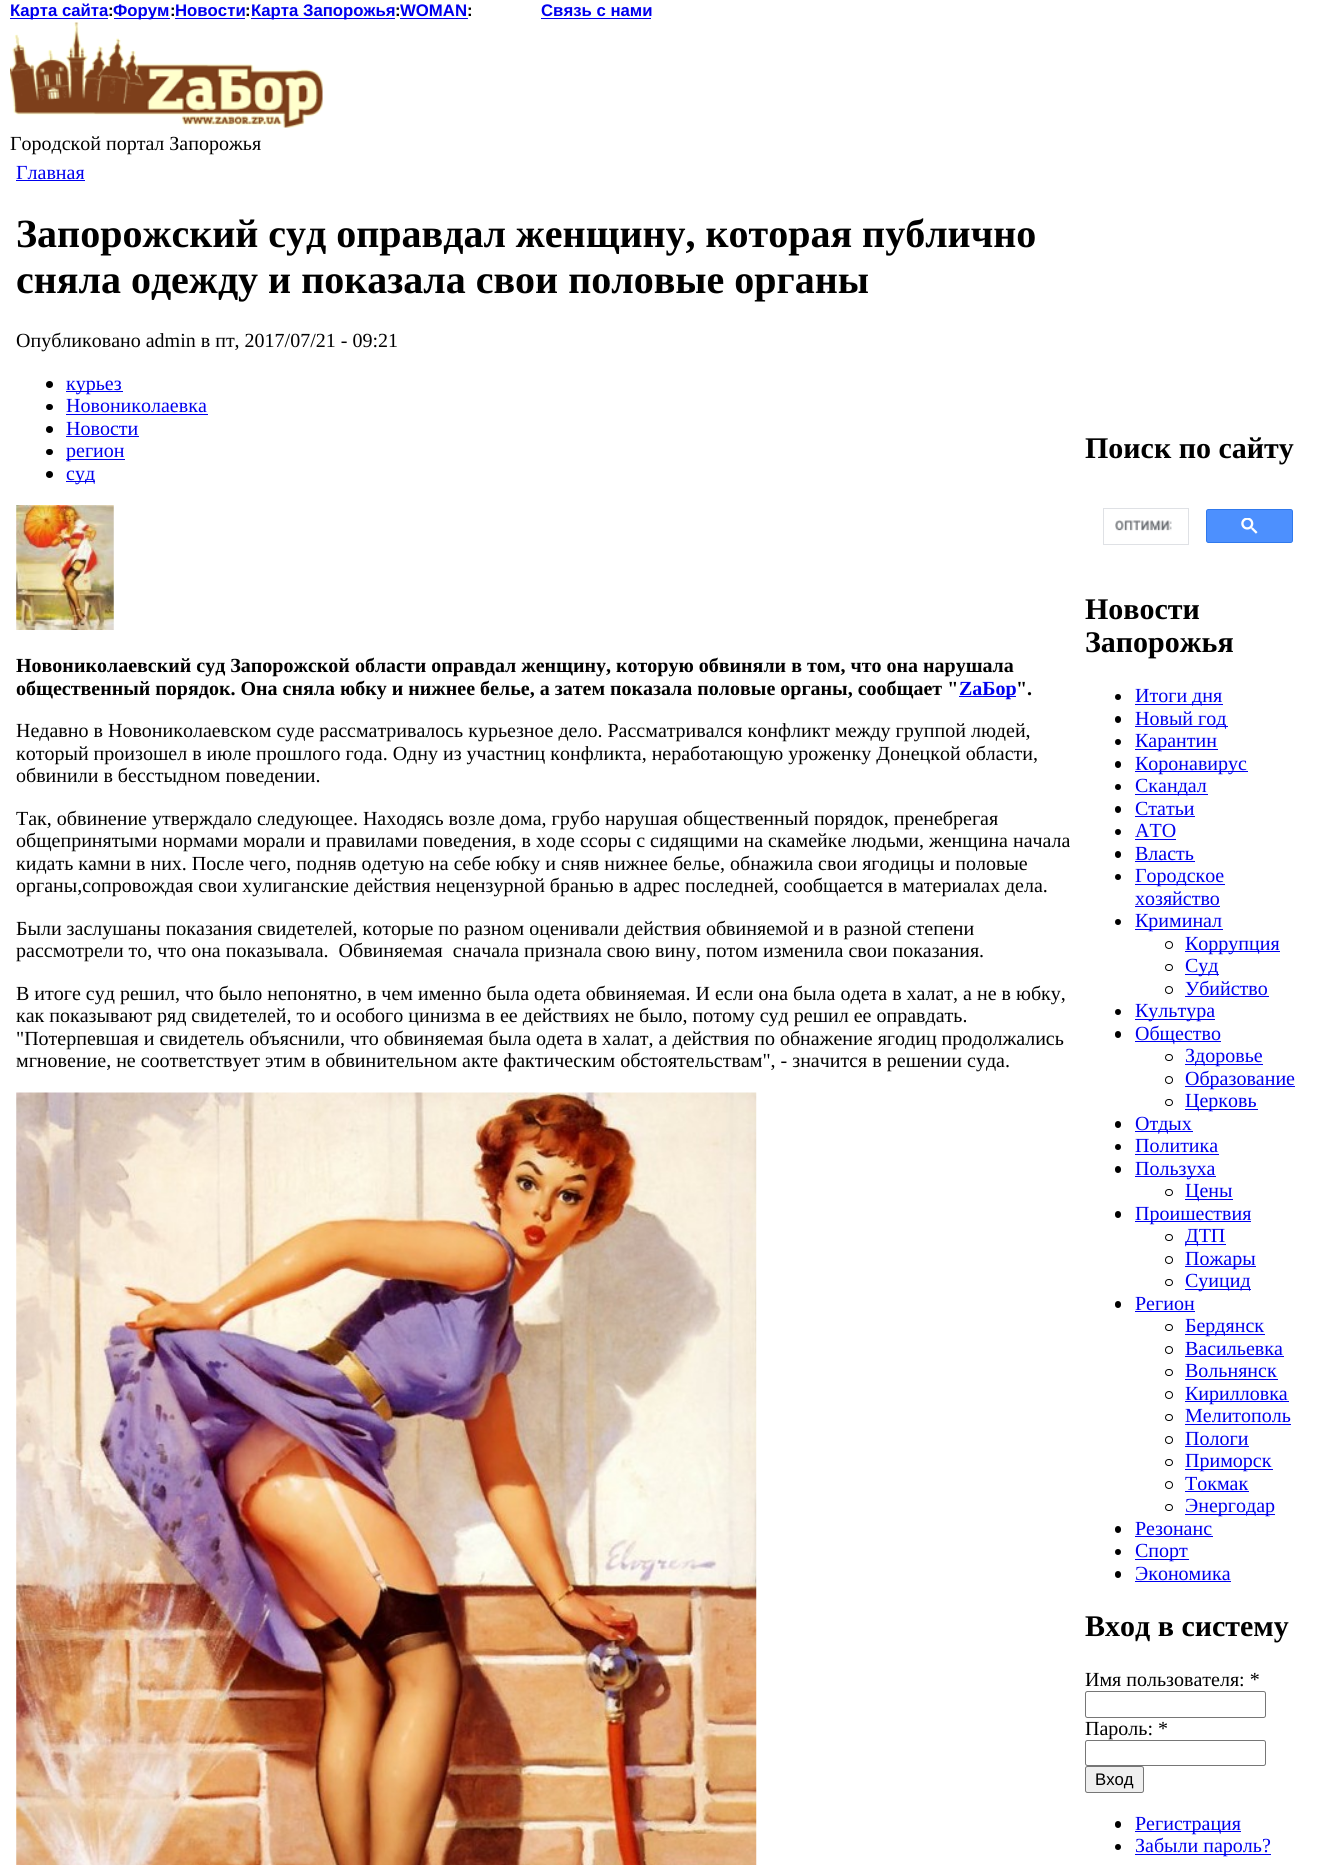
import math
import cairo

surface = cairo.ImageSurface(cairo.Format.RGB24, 1320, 1865)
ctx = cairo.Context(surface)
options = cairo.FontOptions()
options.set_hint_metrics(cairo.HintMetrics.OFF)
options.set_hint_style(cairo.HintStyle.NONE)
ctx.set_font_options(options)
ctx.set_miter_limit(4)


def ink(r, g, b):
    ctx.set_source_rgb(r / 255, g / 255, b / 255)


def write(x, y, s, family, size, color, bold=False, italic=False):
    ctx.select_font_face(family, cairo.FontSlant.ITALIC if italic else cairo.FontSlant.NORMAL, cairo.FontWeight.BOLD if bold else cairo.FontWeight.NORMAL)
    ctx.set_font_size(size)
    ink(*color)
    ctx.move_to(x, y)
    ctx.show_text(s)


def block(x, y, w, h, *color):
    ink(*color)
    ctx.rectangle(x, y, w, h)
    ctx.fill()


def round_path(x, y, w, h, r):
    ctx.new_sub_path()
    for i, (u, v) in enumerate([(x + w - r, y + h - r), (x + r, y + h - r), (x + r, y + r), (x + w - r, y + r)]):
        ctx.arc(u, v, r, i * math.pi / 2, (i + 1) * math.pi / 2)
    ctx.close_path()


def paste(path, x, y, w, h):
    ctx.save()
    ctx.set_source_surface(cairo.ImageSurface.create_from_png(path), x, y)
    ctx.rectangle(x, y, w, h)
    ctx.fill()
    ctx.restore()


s1 = dict(family="Liberation Sans", size=16.75, color=(0, 0, 238), bold=True)
s2 = dict(family="Liberation Sans", size=16.75, color=(0, 0, 0), bold=True)
s3 = dict(family="Liberation Serif", size=20, color=(0, 0, 0))
s4 = dict(family="Liberation Serif", size=20, color=(0, 0, 238))
s5 = dict(family="Liberation Serif", size=40, color=(0, 0, 0), bold=True)
s6 = dict(family="Liberation Serif", size=20, color=(0, 0, 0), bold=True)
s7 = dict(family="Liberation Serif", size=20, color=(0, 0, 238), bold=True)
s8 = dict(family="Liberation Serif", size=30, color=(0, 0, 0), bold=True)
s9 = dict(family="Liberation Sans", size=16.75, color=(0, 0, 0))

ink(255, 255, 255)
ctx.paint()
block(10, 18, 98, 1, 0, 0, 238)
write(10, 16, "Карта сайта", **s1)
write(108, 16, ":", **s2)
block(114, 18, 56, 1, 0, 0, 238)
write(113, 16, "Форум", **s1)
write(170, 16, ":", **s2)
write(175, 16, "Новости", **s1)
block(175, 18, 70, 1, 0, 0, 238)
write(245, 16, ":", **s2)
block(251, 18, 144, 1, 0, 0, 238)
write(251, 16, "Карта Запорожья", **s1)
write(395, 16, ":", **s2)
write(400, 16, "WOMAN", **s1)
block(400, 18, 68, 1, 0, 0, 238)
write(467, 16, ":", **s2)
write(541, 16, "Связь с нами", **s1)
block(541, 18, 110, 1, 0, 0, 238)
paste("pic1.png", 10, 22, 313, 106)
write(10, 150, "Городской портал Запорожья", **s3)
write(16, 179, "Главная", **s4)
block(16, 180, 69, 1, 0, 0, 238)
write(16, 247, "Запорожский суд оправдал женщину, которая публично", **s5)
write(16, 293, "сняла одежду и показала свои половые органы", **s5)
write(16, 347, "Опубликовано admin в пт, 2017/07/21 - 09:21", **s3)
ctx.new_path()
ctx.arc(49.5, 384.5, 3.5, 0, 2 * math.pi)
ctx.fill()
block(66, 391, 57, 1, 0, 0, 238)
write(66, 390, "курьез", **s4)
ink(0, 0, 0)
round_path(46, 404, 7, 6, 3)
ctx.fill()
write(66, 412, "Новониколаевка", **s4)
block(66, 414, 142, 1, 0, 0, 238)
ink(0, 0, 0)
ctx.new_path()
ctx.arc(49.5, 429.5, 3.5, 0, 2 * math.pi)
ctx.fill()
write(66, 435, "Новости", **s4)
block(66, 436, 73, 1, 0, 0, 238)
ink(0, 0, 0)
round_path(46, 449, 7, 6, 3)
ctx.fill()
block(66, 459, 59, 1, 0, 0, 238)
write(66, 457, "регион", **s4)
ink(0, 0, 0)
ctx.new_path()
ctx.arc(49.5, 474.5, 3.5, 0, 2 * math.pi)
ctx.fill()
block(66, 481, 29, 1, 0, 0, 238)
write(66, 480, "суд", **s4)
paste("pic2.png", 16, 505, 98, 125)
write(16, 672, "Новониколаевский суд Запорожской области оправдал женщину, которую обвиняли в том, что она нарушала", **s6)
write(16, 695, "общественный порядок. Она сняла юбку и нижнее белье, а затем показала половые органы, сообщает \"", **s6)
block(959, 696, 57, 1, 0, 0, 238)
write(959, 695, "ZаБор", **s7)
write(1016, 695, "\".", **s6)
write(16, 737, "Недавно в Новониколаевском суде рассматривалось курьезное дело. Рассматривался конфликт между группой людей,", **s3)
write(16, 760, "который произошел в июле прошлого года. Одну из участниц конфликта, неработающую уроженку Донецкой области,", **s3)
write(16, 782, "обвинили в бесстыдном поведении.", **s3)
write(16, 825, "Так, обвинение утверждало следующее. Находясь возле дома, грубо нарушая общественный порядок, пренебрегая", **s3)
write(16, 847, "общепринятыми нормами морали и правилами поведения, в ходе ссоры с сидящими на скамейке людьми, женщина начала", **s3)
write(16, 870, "кидать камни в них. После чего, подняв одетую на себе юбку и сняв нижнее белье, обнажила свои ягодицы и половые", **s3)
write(16, 892, "органы,сопровождая свои хулиганские действия нецензурной бранью в адрес последней, сообщается в материалах дела.", **s3)
write(16, 935, "Были заслушаны показания свидетелей, которые по разном оценивали действия обвиняемой и в разной степени", **s3)
write(16, 957, "рассмотрели то, что она показывала.  Обвиняемая  сначала признала свою вину, потом изменила свои показания.", **s3)
write(16, 1000, "В итоге суд решил, что было непонятно, в чем именно была одета обвиняемая. И если она была одета в халат, а не в юбку,", **s3)
write(16, 1022, "как показывают ряд свидетелей, то и особого цинизма в ее действиях не было, потому суд решил ее оправдать.", **s3)
write(16, 1045, "\"Потерпевшая и свидетель объяснили, что обвиняемая была одета в халат, а действия по обнажение ягодиц продолжались", **s3)
write(16, 1067, "мгновение, не соответствует этим в обвинительном акте фактическим обстоятельствам\", - значится в решении суда.", **s3)
paste("pic3.png", 16, 1092, 741, 773)
write(1085, 458, "Поиск по сайту", **s8)
ctx.rectangle(1103.5, 508.5, 85, 36)
ink(223, 225, 229)
ctx.set_line_width(1)
ctx.stroke()
paste("pic4.png", 1115, 520, 57, 11)
ink(77, 144, 254)
round_path(1206.5, 509.5, 86, 33, 2)
ctx.fill_preserve()
ink(48, 121, 237)
ctx.stroke()
paste("pic5.png", 1241, 518, 17, 16)
write(1085, 619, "Новости", **s8)
write(1085, 652, "Запорожья", **s8)
ctx.new_path()
ctx.arc(1118, 697, 3, 0, 2 * math.pi)
ctx.fill()
block(1135, 704, 88, 1, 0, 0, 238)
write(1135, 702, "Итоги дня", **s4)
ink(0, 0, 0)
round_path(1115, 716, 6, 7, 3)
ctx.fill()
block(1135, 726, 93, 1, 0, 0, 238)
write(1135, 725, "Новый год", **s4)
ink(0, 0, 0)
ctx.new_path()
ctx.arc(1118, 742, 3, 0, 2 * math.pi)
ctx.fill()
block(1135, 749, 83, 1, 0, 0, 238)
write(1135, 747, "Карантин", **s4)
ink(0, 0, 0)
round_path(1115, 761, 6, 7, 3)
ctx.fill()
block(1135, 771, 113, 1, 0, 0, 238)
write(1135, 770, "Коронавирус", **s4)
ink(0, 0, 0)
ctx.new_path()
ctx.arc(1118, 787, 3, 0, 2 * math.pi)
ctx.fill()
block(1135, 794, 73, 1, 0, 0, 238)
write(1135, 792, "Скандал", **s4)
ink(0, 0, 0)
round_path(1115, 806, 6, 7, 3)
ctx.fill()
write(1135, 815, "Статьи", **s4)
block(1135, 816, 60, 1, 0, 0, 238)
ink(0, 0, 0)
ctx.new_path()
ctx.arc(1118, 832, 3, 0, 2 * math.pi)
ctx.fill()
write(1135, 837, "АТО", **s4)
block(1135, 839, 41, 1, 0, 0, 238)
ink(0, 0, 0)
round_path(1115, 851, 6, 7, 3)
ctx.fill()
write(1135, 860, "Власть", **s4)
block(1135, 861, 60, 1, 0, 0, 238)
ink(0, 0, 0)
ctx.new_path()
ctx.arc(1118, 877, 3, 0, 2 * math.pi)
ctx.fill()
block(1135, 884, 90, 1, 0, 0, 238)
write(1135, 882, "Городское", **s4)
write(1135, 905, "хозяйство", **s4)
block(1135, 906, 85, 1, 0, 0, 238)
ink(0, 0, 0)
ctx.new_path()
ctx.arc(1118, 922, 3, 0, 2 * math.pi)
ctx.fill()
block(1135, 929, 88, 1, 0, 0, 238)
write(1135, 927, "Криминал", **s4)
ctx.new_path()
ctx.arc(1169, 945, 3.5, 0, 2 * math.pi)
ink(0, 0, 0)
ctx.stroke()
block(1185, 951, 95, 1, 0, 0, 238)
write(1185, 950, "Коррупция", **s4)
round_path(1165.5, 964.5, 7, 6, 3)
ink(0, 0, 0)
ctx.stroke()
block(1185, 974, 34, 1, 0, 0, 238)
write(1185, 972, "Суд", **s4)
ctx.new_path()
ctx.arc(1169, 990, 3.5, 0, 2 * math.pi)
ink(0, 0, 0)
ctx.stroke()
write(1185, 995, "Убийство", **s4)
block(1185, 996, 84, 1, 0, 0, 238)
ink(0, 0, 0)
ctx.new_path()
ctx.arc(1118, 1012, 3, 0, 2 * math.pi)
ctx.fill()
block(1135, 1019, 80, 1, 0, 0, 238)
write(1135, 1017, "Культура", **s4)
ink(0, 0, 0)
round_path(1115, 1031, 6, 7, 3)
ctx.fill()
block(1135, 1041, 86, 1, 0, 0, 238)
write(1135, 1040, "Общество", **s4)
round_path(1165.5, 1054.5, 7, 6, 3)
ink(0, 0, 0)
ctx.stroke()
block(1185, 1064, 78, 1, 0, 0, 238)
write(1185, 1062, "Здоровье", **s4)
ctx.new_path()
ctx.arc(1169, 1080, 3.5, 0, 2 * math.pi)
ink(0, 0, 0)
ctx.stroke()
block(1185, 1086, 110, 1, 0, 0, 238)
write(1185, 1085, "Образование", **s4)
round_path(1165.5, 1099.5, 7, 6, 3)
ink(0, 0, 0)
ctx.stroke()
block(1185, 1109, 73, 1, 0, 0, 238)
write(1185, 1107, "Церковь", **s4)
ink(0, 0, 0)
round_path(1115, 1121, 6, 7, 3)
ctx.fill()
block(1135, 1131, 58, 1, 0, 0, 238)
write(1135, 1130, "Отдых", **s4)
ink(0, 0, 0)
ctx.new_path()
ctx.arc(1118, 1147, 3, 0, 2 * math.pi)
ctx.fill()
write(1135, 1152, "Политика", **s4)
block(1135, 1154, 84, 1, 0, 0, 238)
ink(0, 0, 0)
round_path(1115, 1166, 6, 7, 3)
ctx.fill()
block(1135, 1176, 81, 1, 0, 0, 238)
write(1135, 1175, "Пользуха", **s4)
round_path(1165.5, 1189.5, 7, 6, 3)
ink(0, 0, 0)
ctx.stroke()
block(1185, 1199, 48, 1, 0, 0, 238)
write(1185, 1197, "Цены", **s4)
ink(0, 0, 0)
round_path(1115, 1211, 6, 7, 3)
ctx.fill()
block(1135, 1221, 116, 1, 0, 0, 238)
write(1135, 1220, "Проишествия", **s4)
round_path(1165.5, 1234.5, 7, 6, 3)
ink(0, 0, 0)
ctx.stroke()
block(1185, 1244, 41, 1, 0, 0, 238)
write(1185, 1242, "ДТП", **s4)
ctx.new_path()
ctx.arc(1169, 1260, 3.5, 0, 2 * math.pi)
ink(0, 0, 0)
ctx.stroke()
block(1185, 1266, 71, 1, 0, 0, 238)
write(1185, 1265, "Пожары", **s4)
round_path(1165.5, 1279.5, 7, 6, 3)
ink(0, 0, 0)
ctx.stroke()
block(1185, 1289, 66, 1, 0, 0, 238)
write(1185, 1287, "Суицид", **s4)
ink(0, 0, 0)
round_path(1115, 1301, 6, 7, 3)
ctx.fill()
write(1135, 1310, "Регион", **s4)
block(1135, 1311, 60, 1, 0, 0, 238)
round_path(1165.5, 1324.5, 7, 6, 3)
ink(0, 0, 0)
ctx.stroke()
block(1185, 1334, 80, 1, 0, 0, 238)
write(1185, 1332, "Бердянск", **s4)
ctx.new_path()
ctx.arc(1169, 1350, 3.5, 0, 2 * math.pi)
ink(0, 0, 0)
ctx.stroke()
write(1185, 1355, "Васильевка", **s4)
block(1185, 1356, 99, 1, 0, 0, 238)
round_path(1165.5, 1369.5, 7, 6, 3)
ink(0, 0, 0)
ctx.stroke()
write(1185, 1377, "Вольнянск", **s4)
block(1185, 1379, 93, 1, 0, 0, 238)
ctx.new_path()
ctx.arc(1169, 1395, 3.5, 0, 2 * math.pi)
ink(0, 0, 0)
ctx.stroke()
block(1185, 1401, 104, 1, 0, 0, 238)
write(1185, 1400, "Кирилловка", **s4)
round_path(1165.5, 1414.5, 7, 6, 3)
ink(0, 0, 0)
ctx.stroke()
write(1185, 1422, "Мелитополь", **s4)
block(1185, 1424, 106, 1, 0, 0, 238)
ctx.new_path()
ctx.arc(1169, 1440, 3.5, 0, 2 * math.pi)
ink(0, 0, 0)
ctx.stroke()
write(1185, 1445, "Пологи", **s4)
block(1185, 1446, 64, 1, 0, 0, 238)
round_path(1165.5, 1459.5, 7, 6, 3)
ink(0, 0, 0)
ctx.stroke()
block(1185, 1469, 88, 1, 0, 0, 238)
write(1185, 1467, "Приморск", **s4)
ctx.new_path()
ctx.arc(1169, 1485, 3.5, 0, 2 * math.pi)
ink(0, 0, 0)
ctx.stroke()
write(1185, 1490, "Токмак", **s4)
block(1185, 1491, 64, 1, 0, 0, 238)
round_path(1165.5, 1504.5, 7, 6, 3)
ink(0, 0, 0)
ctx.stroke()
block(1185, 1514, 90, 1, 0, 0, 238)
write(1185, 1512, "Энергодар", **s4)
ink(0, 0, 0)
round_path(1115, 1526, 6, 7, 3)
ctx.fill()
write(1135, 1535, "Резонанс", **s4)
block(1135, 1536, 78, 1, 0, 0, 238)
ink(0, 0, 0)
ctx.new_path()
ctx.arc(1118, 1552, 3, 0, 2 * math.pi)
ctx.fill()
block(1135, 1559, 54, 1, 0, 0, 238)
write(1135, 1557, "Спорт", **s4)
ink(0, 0, 0)
round_path(1115, 1571, 6, 7, 3)
ctx.fill()
write(1135, 1580, "Экономика", **s4)
block(1135, 1581, 96, 1, 0, 0, 238)
write(1085, 1636, "Вход в систему", **s8)
write(1085, 1686, "Имя пользователя: *", **s3)
round_path(1085.5, 1691.5, 180, 26, 2)
ink(118, 118, 118)
ctx.stroke()
write(1085, 1735, "Пароль: *", **s3)
round_path(1085.5, 1740.5, 180, 25, 2)
ink(118, 118, 118)
ctx.stroke()
ink(239, 239, 239)
round_path(1085.5, 1766.5, 58, 26, 2)
ctx.fill_preserve()
ink(118, 118, 118)
ctx.stroke()
write(1095, 1785, "Вход", **s9)
round_path(1115, 1821, 6, 7, 3)
ctx.fill()
block(1135, 1831, 106, 1, 0, 0, 238)
write(1135, 1830, "Регистрация", **s4)
ink(0, 0, 0)
ctx.new_path()
ctx.arc(1118, 1847, 3, 0, 2 * math.pi)
ctx.fill()
block(1135, 1854, 136, 1, 0, 0, 238)
write(1135, 1852, "Забыли пароль?", **s4)
surface.write_to_png("screenshot.png")
